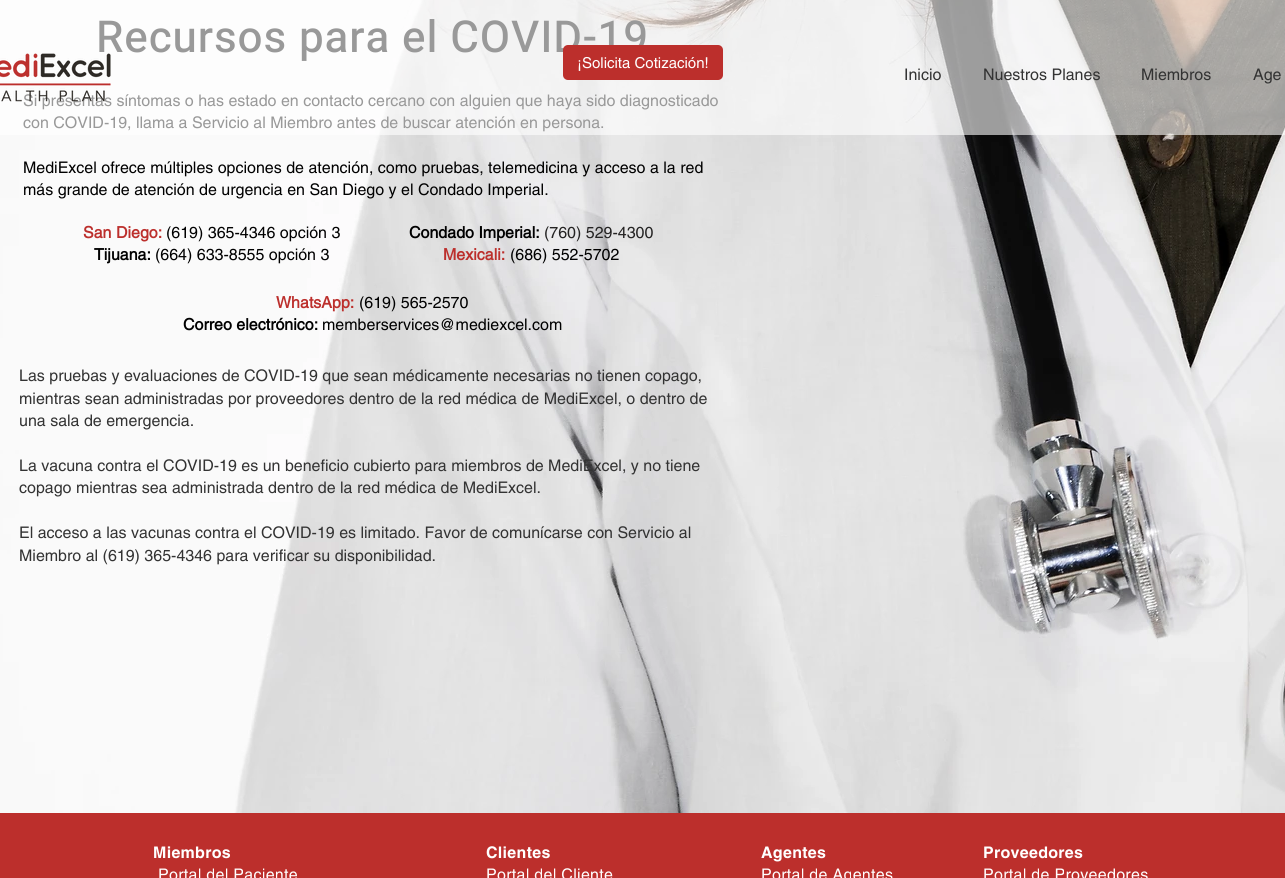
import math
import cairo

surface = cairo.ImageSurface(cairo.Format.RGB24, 1285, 878)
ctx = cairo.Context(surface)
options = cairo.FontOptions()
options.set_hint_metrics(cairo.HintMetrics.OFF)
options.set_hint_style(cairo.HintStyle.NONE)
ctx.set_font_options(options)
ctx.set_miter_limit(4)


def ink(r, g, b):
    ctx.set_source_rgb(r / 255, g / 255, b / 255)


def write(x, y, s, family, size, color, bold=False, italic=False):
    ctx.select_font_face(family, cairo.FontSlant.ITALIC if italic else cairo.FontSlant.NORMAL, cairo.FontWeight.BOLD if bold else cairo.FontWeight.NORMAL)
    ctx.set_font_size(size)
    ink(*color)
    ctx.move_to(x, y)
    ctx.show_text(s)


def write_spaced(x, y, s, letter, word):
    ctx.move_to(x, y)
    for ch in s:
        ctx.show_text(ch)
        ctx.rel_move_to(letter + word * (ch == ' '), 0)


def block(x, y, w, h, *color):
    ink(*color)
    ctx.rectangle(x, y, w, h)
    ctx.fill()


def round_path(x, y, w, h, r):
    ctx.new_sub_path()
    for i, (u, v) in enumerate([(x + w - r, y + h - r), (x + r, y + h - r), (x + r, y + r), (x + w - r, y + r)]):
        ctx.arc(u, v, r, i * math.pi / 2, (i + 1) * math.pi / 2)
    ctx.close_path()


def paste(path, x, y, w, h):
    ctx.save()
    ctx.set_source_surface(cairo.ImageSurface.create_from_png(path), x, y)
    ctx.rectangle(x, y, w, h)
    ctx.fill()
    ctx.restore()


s1 = dict(family="helvetica", size=16, color=(0, 0, 0))
s2 = dict(family="helvetica", size=16, color=(188, 47, 44), bold=True)
s3 = dict(family="helvetica", size=16, color=(0, 0, 0), bold=True)
s4 = dict(family="helvetica", size=16, color=(36, 35, 35))
s5 = dict(family="helvetica", size=16, color=(51, 51, 51))
s6 = dict(family="helvetica", size=15, color=(255, 255, 255))

ink(255, 255, 255)
ctx.paint()
paste("pic1.png", 0, 0, 1285, 813)
ctx.select_font_face("Heebo Medium")
ctx.set_font_size(44)
ink(0, 0, 0)
write_spaced(96, 52, "Recursos para el COVID-19", 0.9, 0)
write(23, 106, "Si presentas síntomas o has estado en contacto cercano con alguien que haya sido diagnosticado", **s1)
write(23, 128, "con COVID-19, llama a Servicio al Miembro antes de buscar atención en persona.", **s1)
write(23, 173, "MediExcel ofrece múltiples opciones de atención, como pruebas, telemedicina y acceso a la red", **s1)
write(23, 195, "más grande de atención de urgencia en San Diego y el Condado Imperial.", **s1)
write(83, 238, "San Diego:", **s2)
write(166, 238, "(619) 365-4346 opción 3", **s1)
write(94, 260, "Tijuana:", **s3)
write(155, 260, "(664) 633-8555 opción 3", **s1)
write(409, 238, "Condado Imperial:", **s3)
write(544, 238, "(760) 529-4300", **s4)
write(443, 260, "Mexicali:", **s2)
write(510, 260, "(686) 552-5702", **s1)
write(276, 308, "WhatsApp:", **s2)
write(359, 308, "(619) 565-2570", **s1)
write(183, 330, "Correo electrónico:", **s3)
write(322, 330, "memberservices@mediexcel.com", **s1)
write(19, 381, "Las pruebas y evaluaciones de COVID-19 que sean médicamente necesarias no tienen copago,", **s5)
write(19, 404, "mientras sean administradas por proveedores dentro de la red médica de MediExcel, o dentro de", **s5)
write(19, 426, "una sala de emergencia.", **s5)
write(19, 471, "La vacuna contra el COVID-19 es un beneficio cubierto para miembros de MediExcel, y no tiene", **s5)
write(19, 493, "copago mientras sea administrada dentro de la red médica de MediExcel.", **s5)
write(19, 538, "El acceso a las vacunas contra el COVID-19 es limitado. Favor de comunícarse con Servicio al", **s5)
write(19, 561, "Miembro al (619) 365-4346 para verificar su disponibilidad.", **s5)
ctx.set_source_rgba(1, 1, 1, 0.6)
ctx.rectangle(0, 0, 1285, 135)
ctx.fill()
paste("pic2.png", 0, 53, 111, 49)
ink(188, 47, 44)
round_path(563, 45, 160, 35, 5)
ctx.fill()
write(577, 68, "¡Solicita Cotización!", **s6)
write(904, 80, "Inicio", **s5)
write(983, 80, "Nuestros Planes", **s5)
write(1141, 80, "Miembros", **s5)
write(1253, 80, "Age", **s5)
block(0, 813, 1285, 65, 188, 47, 44)
ctx.select_font_face("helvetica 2", cairo.FontSlant.NORMAL, cairo.FontWeight.BOLD)
ink(255, 255, 255)
write_spaced(153, 858, "Miembros", 0.3, 0)
write_spaced(486, 858, "Clientes", 0.3, 0)
ctx.select_font_face("helvetica")
write_spaced(486, 880, "Portal del Cliente", 0.3, 0)
ctx.select_font_face("helvetica 2", cairo.FontSlant.NORMAL, cairo.FontWeight.BOLD)
write_spaced(761, 858, "Agentes", 0.3, 0)
ctx.select_font_face("helvetica")
write_spaced(761, 880, "Portal de Agentes", 0.3, 0)
ctx.select_font_face("helvetica 2", cairo.FontSlant.NORMAL, cairo.FontWeight.BOLD)
write_spaced(983, 858, "Proveedores", 0.3, 0)
ctx.select_font_face("helvetica")
write_spaced(983, 880, "Portal de Proveedores", 0.3, 0)
write_spaced(158, 880, "Portal del Paciente", 0.3, 0)
surface.write_to_png("screenshot.png")
